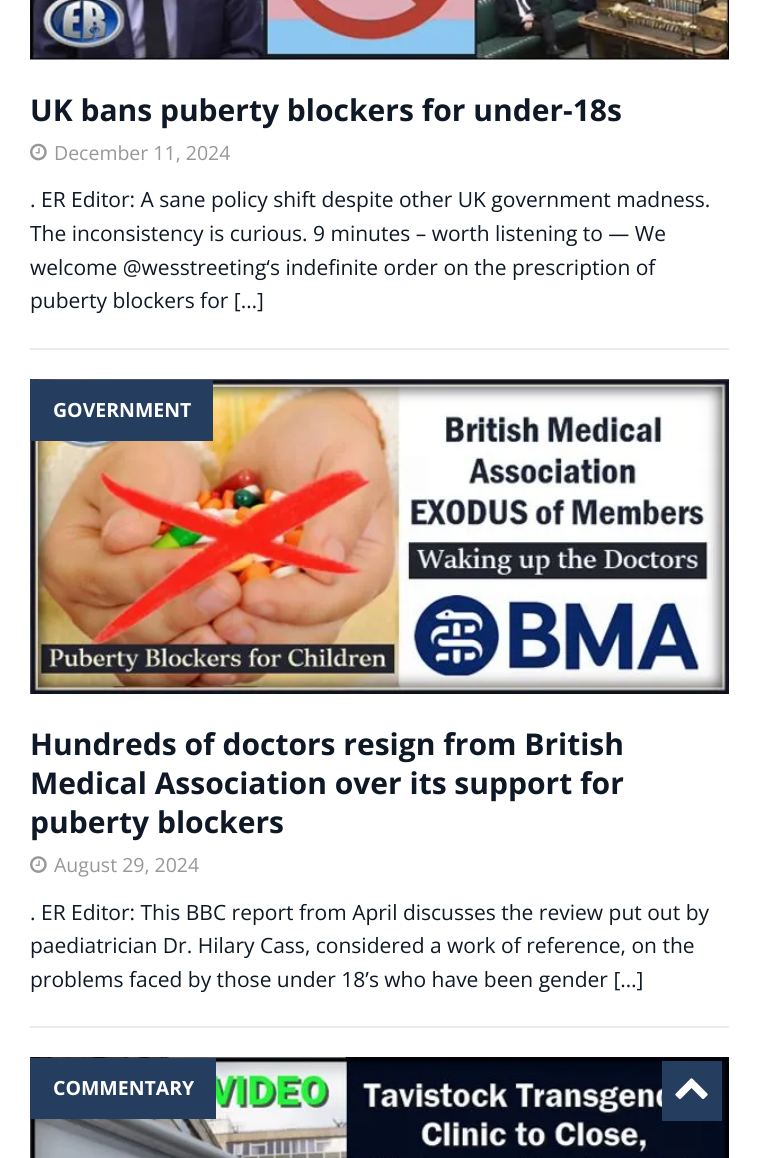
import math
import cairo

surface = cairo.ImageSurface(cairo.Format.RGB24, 759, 1158)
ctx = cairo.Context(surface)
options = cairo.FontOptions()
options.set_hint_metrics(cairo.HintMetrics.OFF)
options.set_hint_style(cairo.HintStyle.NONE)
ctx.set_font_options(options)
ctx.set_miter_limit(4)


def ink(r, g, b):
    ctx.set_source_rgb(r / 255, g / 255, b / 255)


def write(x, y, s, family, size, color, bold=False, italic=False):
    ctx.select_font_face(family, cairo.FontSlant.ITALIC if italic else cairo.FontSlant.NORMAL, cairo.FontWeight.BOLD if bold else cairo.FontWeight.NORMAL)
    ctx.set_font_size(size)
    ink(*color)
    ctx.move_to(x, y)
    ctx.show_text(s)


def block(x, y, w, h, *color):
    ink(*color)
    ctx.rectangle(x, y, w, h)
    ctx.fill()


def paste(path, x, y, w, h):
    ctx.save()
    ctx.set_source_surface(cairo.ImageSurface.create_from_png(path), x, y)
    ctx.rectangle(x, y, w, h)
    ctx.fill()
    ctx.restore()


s1 = dict(family="Open Sans", size=30, color=(14, 24, 38), bold=True)
s2 = dict(family="Open Sans", size=19.5, color=(151, 151, 151))
s3 = dict(family="Open Sans", size=21, color=(14, 24, 38))
s4 = dict(family="Open Sans", size=19.5, color=(255, 255, 255), bold=True)

ink(255, 255, 255)
ctx.paint()
block(30, 348, 699, 2, 235, 235, 235)
paste("pic1.png", 30, 0, 699, 60)
write(30, 121, "UK bans puberty blockers for under-18s", **s1)
paste("pic2.png", 30, 143, 17, 18)
write(54, 160, "December 11, 2024", **s2)
write(30, 207, ". ER Editor: A sane policy shift despite other UK government madness.", **s3)
write(30, 241, "The inconsistency is curious. 9 minutes – worth listening to — We", **s3)
write(30, 275, "welcome @wesstreeting‘s indefinite order on the prescription of", **s3)
write(30, 308, "puberty blockers for […]", **s3)
block(30, 1026, 699, 2, 235, 235, 235)
paste("pic3.png", 30, 379, 699, 315)
block(30, 380, 183, 61, 37, 62, 95)
write(53, 417, "GOVERNMENT", **s4)
write(30, 755, "Hundreds of doctors resign from British", **s1)
write(30, 794, "Medical Association over its support for", **s1)
write(30, 833, "puberty blockers", **s1)
paste("pic4.png", 30, 856, 17, 17)
write(54, 872, "August 29, 2024", **s2)
write(30, 920, ". ER Editor: This BBC report from April discusses the review put out by", **s3)
write(30, 953, "paediatrician Dr. Hilary Cass, considered a work of reference, on the", **s3)
write(30, 987, "problems faced by those under 18’s who have been gender […]", **s3)
paste("pic5.png", 30, 1057, 699, 101)
block(30, 1058, 186, 61, 37, 62, 95)
write(53, 1095, "COMMENTARY", **s4)
block(662, 1061, 60, 60, 37, 62, 95)
paste("pic6.png", 675, 1078, 33, 21)
surface.write_to_png("screenshot.png")
